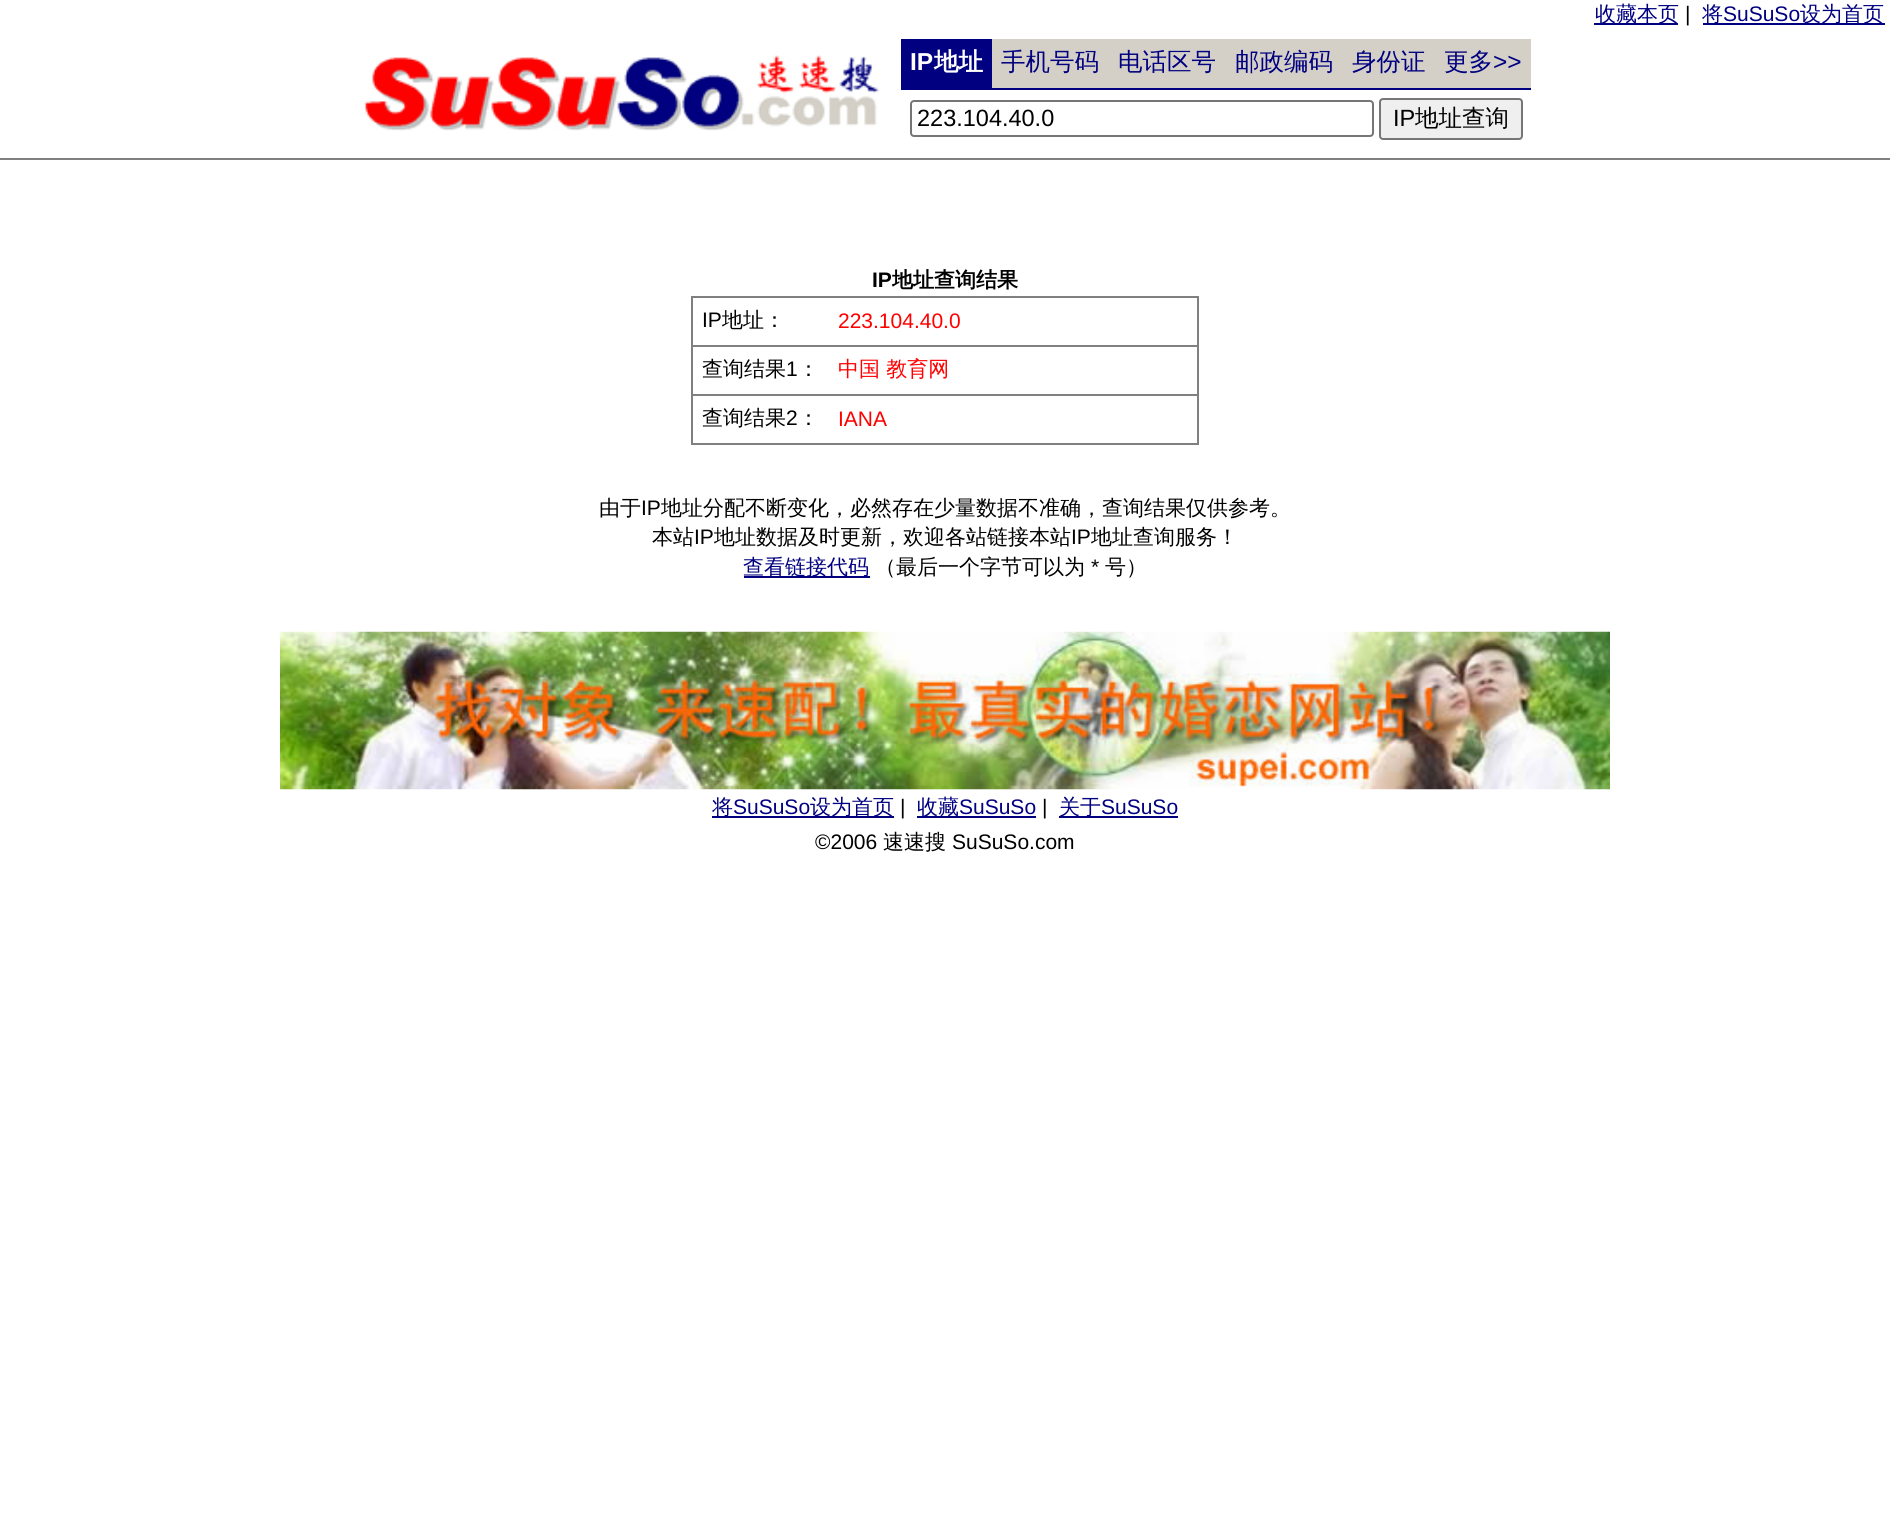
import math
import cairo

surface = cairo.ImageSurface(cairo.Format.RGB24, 1890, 1519)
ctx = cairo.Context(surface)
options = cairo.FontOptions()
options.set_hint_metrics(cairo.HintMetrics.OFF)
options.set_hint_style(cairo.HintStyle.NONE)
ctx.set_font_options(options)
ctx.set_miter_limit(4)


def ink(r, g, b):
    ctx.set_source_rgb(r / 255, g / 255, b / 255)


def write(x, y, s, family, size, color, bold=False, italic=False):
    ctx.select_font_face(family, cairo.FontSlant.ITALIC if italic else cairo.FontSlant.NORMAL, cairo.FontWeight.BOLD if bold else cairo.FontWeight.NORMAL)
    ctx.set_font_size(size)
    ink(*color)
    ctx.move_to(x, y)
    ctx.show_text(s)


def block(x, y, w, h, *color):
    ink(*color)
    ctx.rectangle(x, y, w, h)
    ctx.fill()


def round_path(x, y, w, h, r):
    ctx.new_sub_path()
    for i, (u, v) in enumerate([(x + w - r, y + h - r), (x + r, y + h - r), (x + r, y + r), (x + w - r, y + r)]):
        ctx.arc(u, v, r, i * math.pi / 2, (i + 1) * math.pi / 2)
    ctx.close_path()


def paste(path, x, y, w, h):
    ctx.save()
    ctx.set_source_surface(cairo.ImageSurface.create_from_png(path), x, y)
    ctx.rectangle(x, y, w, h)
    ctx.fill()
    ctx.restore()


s1 = dict(family="WenQuanYi Zen Hei Medium", size=21, color=(0, 0, 128))
s2 = dict(family="Liberation Sans", size=21, color=(0, 0, 0))
s3 = dict(family="Liberation Sans", size=21, color=(0, 0, 128))
s4 = dict(family="Liberation Sans", size=24.5, color=(255, 255, 255), bold=True)
s5 = dict(family="WenQuanYi Zen Hei", size=24.5, color=(255, 255, 255), bold=True)
s6 = dict(family="WenQuanYi Zen Hei Medium", size=24.5, color=(0, 0, 128))
s7 = dict(family="Liberation Sans", size=24.5, color=(0, 0, 128))
s8 = dict(family="Liberation Sans", size=23.5, color=(0, 0, 0))
s9 = dict(family="WenQuanYi Zen Hei Medium", size=23.5, color=(0, 0, 0))
s10 = dict(family="Liberation Sans", size=21, color=(0, 0, 0), bold=True)
s11 = dict(family="WenQuanYi Zen Hei", size=21, color=(0, 0, 0), bold=True)
s12 = dict(family="WenQuanYi Zen Hei Medium", size=21, color=(0, 0, 0))
s13 = dict(family="Liberation Sans", size=21, color=(255, 0, 0))
s14 = dict(family="WenQuanYi Zen Hei Medium", size=21, color=(255, 0, 0))

ink(255, 255, 255)
ctx.paint()
block(1594, 23, 84, 2, 0, 0, 128)
write(1595, 21, "收藏本页", **s1)
write(1685, 21, "|", **s2)
block(1703, 23, 182, 2, 0, 0, 128)
write(1702, 21, "将", **s1)
write(1723, 21, "SuSuSo", **s3)
write(1800, 21, "设为首页", **s1)
paste("pic1.png", 364, 55, 515, 76)
block(901, 39, 91, 51, 0, 0, 128)
write(910, 70, "IP", **s4)
write(934, 70, "地址", **s5)
block(992, 39, 539, 49, 212, 208, 200)
block(992, 88, 539, 2, 0, 0, 128)
write(1001, 70, "手机号码", **s6)
write(1118, 70, "电话区号", **s6)
write(1235, 70, "邮政编码", **s6)
write(1352, 70, "身份证", **s6)
write(1444, 70, "更多", **s6)
write(1493, 70, ">>", **s7)
round_path(911, 101, 462, 35, 3)
ink(118, 118, 118)
ctx.stroke()
write(917, 126, "223.104.40.0", **s8)
ink(239, 239, 239)
round_path(1380, 99, 142, 40, 3)
ctx.fill_preserve()
ink(118, 118, 118)
ctx.stroke()
write(1393, 126, "IP", **s8)
write(1415, 126, "地址查询", **s9)
block(0, 158, 1890, 2, 128, 128, 128)
write(872, 287, "IP", **s10)
write(892, 287, "地址查询结果", **s11)
block(691, 296, 508, 149, 128, 128, 128)
block(693, 298, 504, 47, 255, 255, 255)
write(702, 327, "IP", **s2)
write(722, 327, "地址：", **s12)
write(838, 328, "223.104.40.0", **s13)
block(693, 347, 504, 47, 255, 255, 255)
write(702, 376, "查询结果", **s12)
write(786, 376, "1", **s2)
write(798, 376, "：", **s12)
write(838, 376, "中国 教育网", **s14)
block(693, 396, 504, 47, 255, 255, 255)
write(702, 425, "查询结果", **s12)
write(786, 425, "2", **s2)
write(798, 425, "：", **s12)
write(838, 426, "IANA", **s13)
write(599, 515, "由于", **s12)
write(641, 515, "IP", **s2)
write(661, 515, "地址分配不断变化，必然存在少量数据不准确，查询结果仅供参考。", **s12)
write(652, 544, "本站", **s12)
write(694, 544, "IP", **s2)
write(714, 544, "地址数据及时更新，欢迎各站链接本站", **s12)
write(1071, 544, "IP", **s2)
write(1091, 544, "地址查询服务！", **s12)
block(744, 576, 126, 2, 0, 0, 128)
write(743, 574, "查看链接代码", **s1)
write(875, 574, "（最后一个字节可以为", **s12)
write(1091, 574, "*", **s2)
write(1105, 574, "号）", **s12)
paste("pic2.png", 280, 631, 1330, 159)
block(712, 816, 182, 2, 0, 0, 128)
write(712, 814, "将", **s1)
write(733, 814, "SuSuSo", **s3)
write(810, 814, "设为首页", **s1)
write(900, 814, "|", **s2)
block(917, 816, 119, 2, 0, 0, 128)
write(917, 814, "收藏", **s1)
write(959, 814, "SuSuSo", **s3)
write(1042, 814, "|", **s2)
block(1059, 816, 119, 2, 0, 0, 128)
write(1059, 814, "关于", **s1)
write(1101, 814, "SuSuSo", **s3)
write(815, 849, "©2006", **s2)
write(883, 849, "速速搜", **s12)
write(952, 849, "SuSuSo.com", **s2)
surface.write_to_png("screenshot.png")
